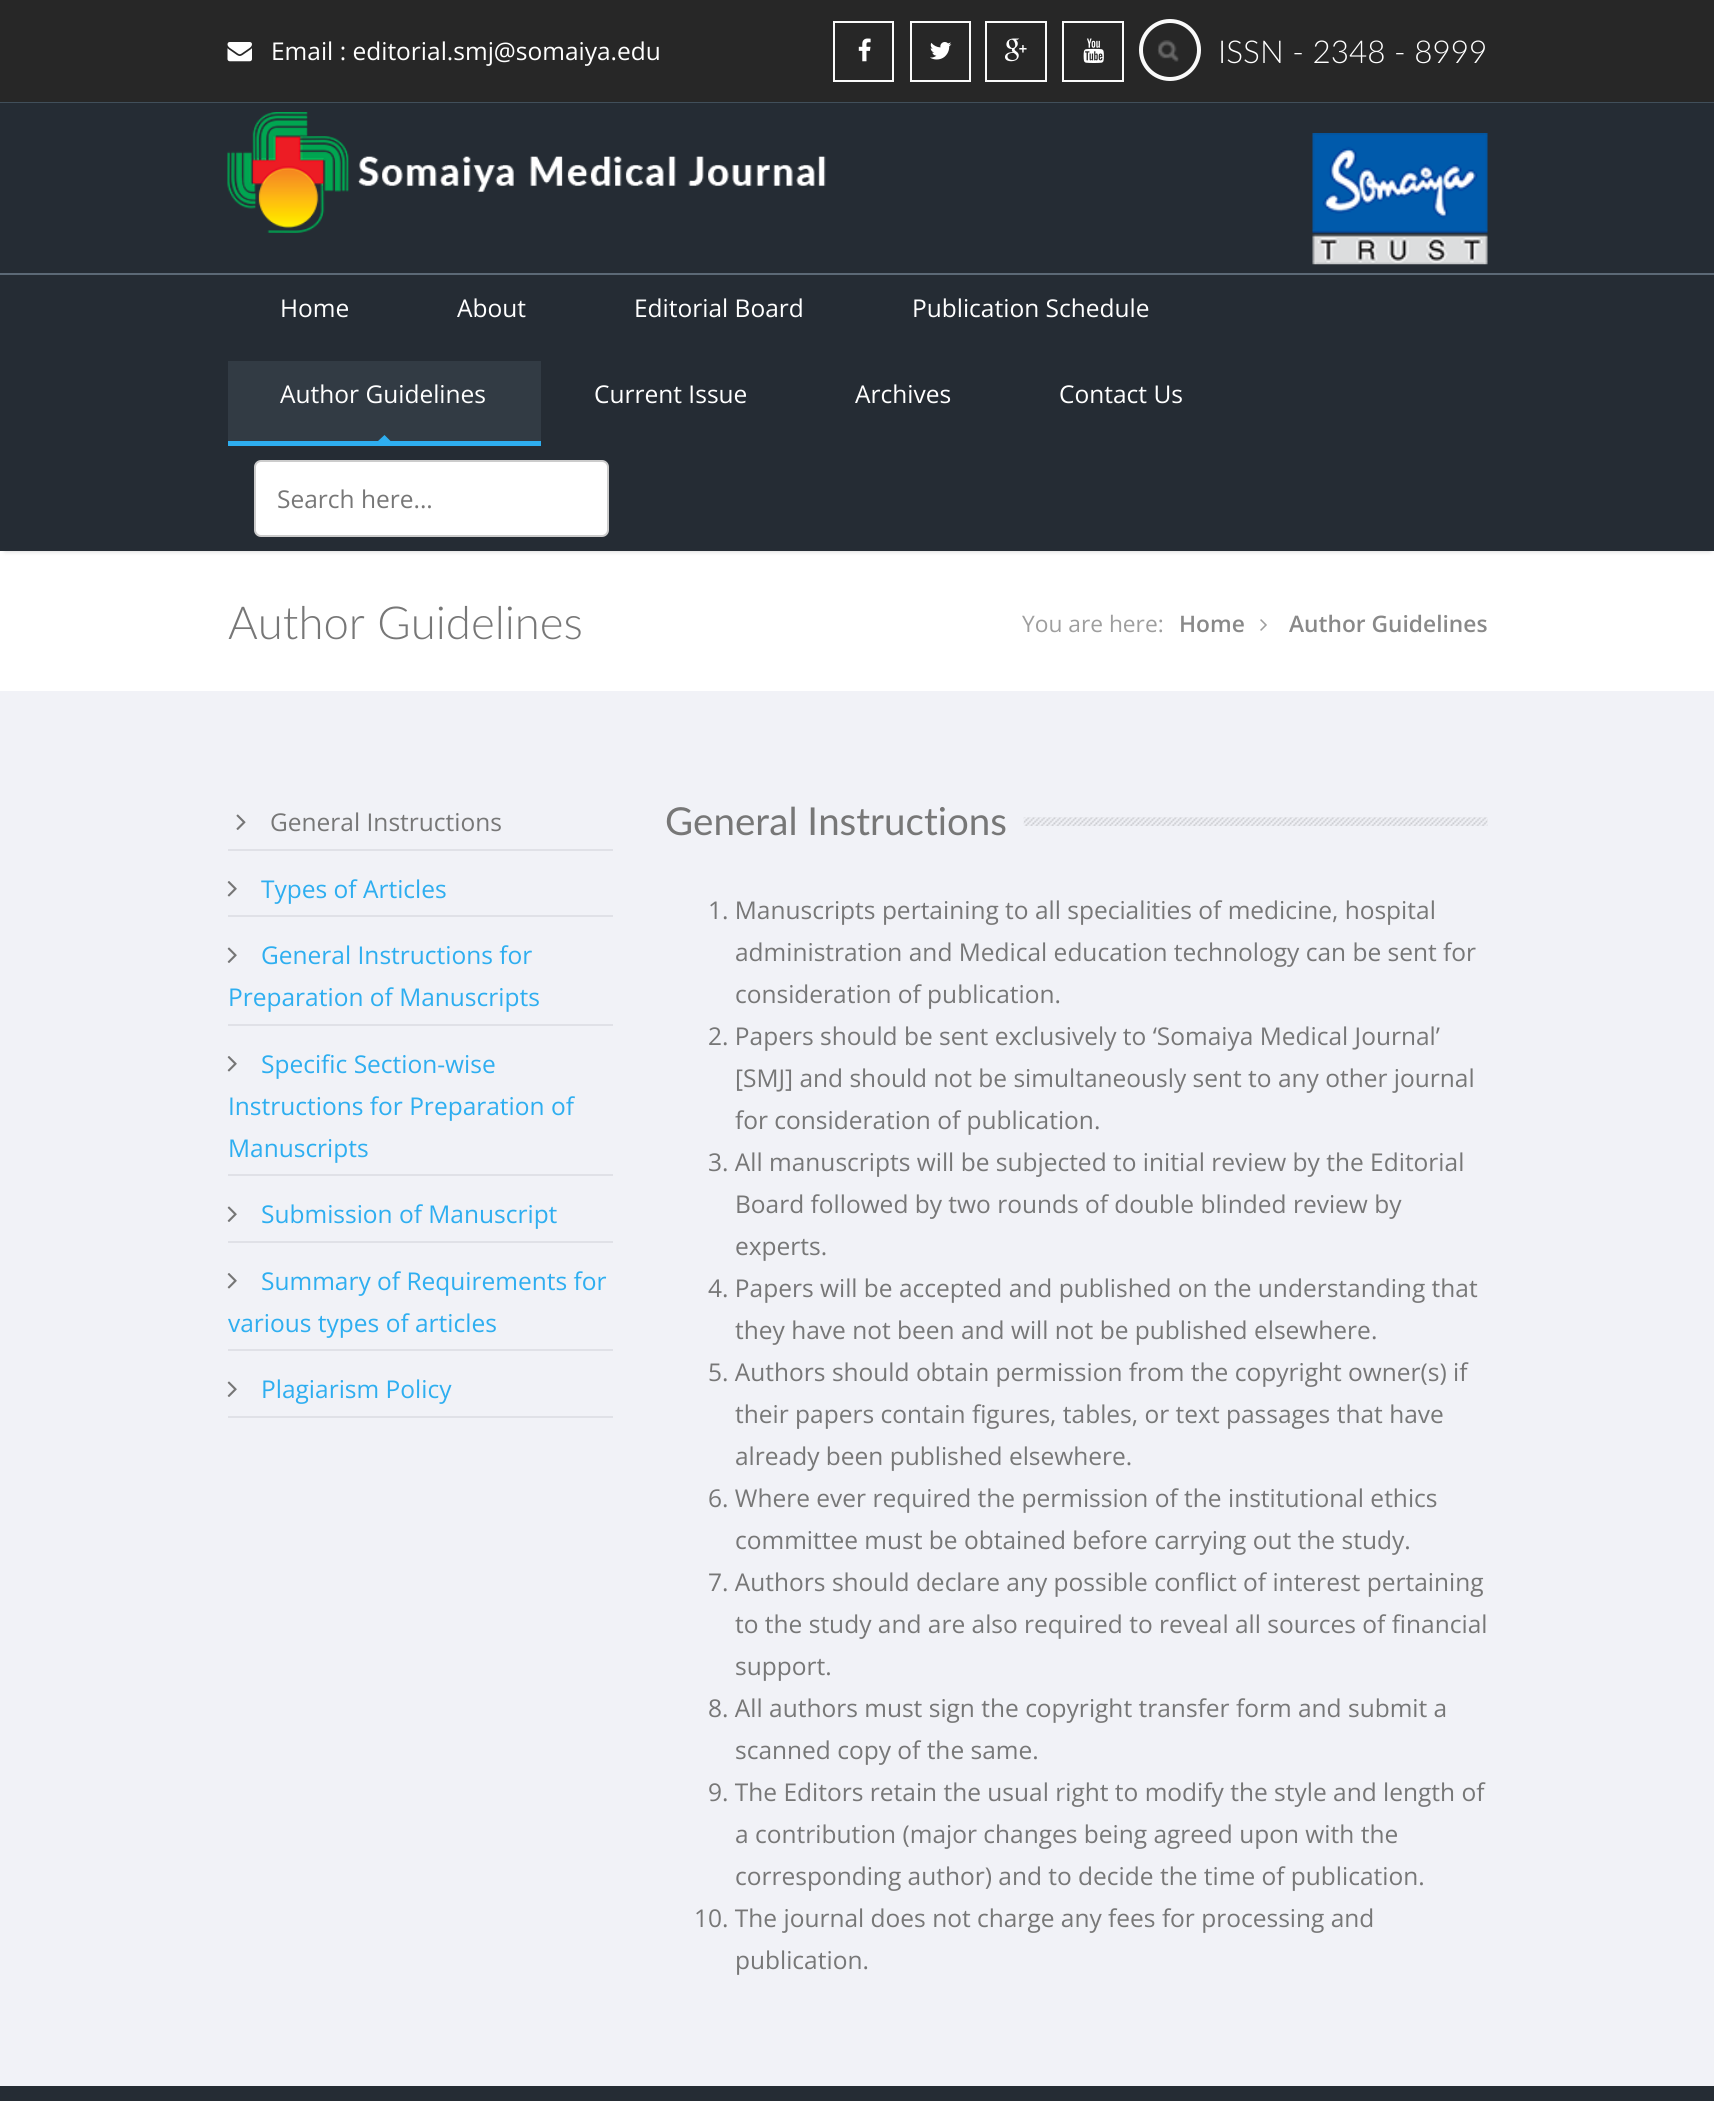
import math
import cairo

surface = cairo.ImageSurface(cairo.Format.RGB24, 1714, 2101)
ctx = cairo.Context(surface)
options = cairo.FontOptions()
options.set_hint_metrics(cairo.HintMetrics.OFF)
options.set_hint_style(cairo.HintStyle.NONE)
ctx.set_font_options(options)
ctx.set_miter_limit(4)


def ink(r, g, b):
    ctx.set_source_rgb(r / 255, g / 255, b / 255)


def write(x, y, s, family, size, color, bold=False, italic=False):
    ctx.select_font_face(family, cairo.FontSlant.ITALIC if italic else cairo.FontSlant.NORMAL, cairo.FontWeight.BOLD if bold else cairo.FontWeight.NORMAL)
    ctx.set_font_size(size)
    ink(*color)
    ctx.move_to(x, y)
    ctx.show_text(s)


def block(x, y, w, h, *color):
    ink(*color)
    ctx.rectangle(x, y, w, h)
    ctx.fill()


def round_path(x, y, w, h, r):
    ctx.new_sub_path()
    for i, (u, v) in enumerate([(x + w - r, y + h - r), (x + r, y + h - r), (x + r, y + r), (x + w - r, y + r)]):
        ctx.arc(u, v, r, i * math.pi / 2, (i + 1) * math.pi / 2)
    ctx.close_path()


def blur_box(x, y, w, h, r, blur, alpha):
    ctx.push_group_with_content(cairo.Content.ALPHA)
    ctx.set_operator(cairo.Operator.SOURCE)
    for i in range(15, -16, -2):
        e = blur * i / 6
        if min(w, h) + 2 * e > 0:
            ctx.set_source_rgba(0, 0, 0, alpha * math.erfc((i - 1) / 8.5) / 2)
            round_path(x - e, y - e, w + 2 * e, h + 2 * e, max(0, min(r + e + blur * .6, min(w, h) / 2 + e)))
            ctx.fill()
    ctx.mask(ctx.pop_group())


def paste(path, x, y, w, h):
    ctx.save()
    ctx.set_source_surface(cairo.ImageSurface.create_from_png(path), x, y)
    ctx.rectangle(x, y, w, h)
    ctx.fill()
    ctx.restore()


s1 = dict(family="Open Sans", size=24.5, color=(255, 255, 255))
s2 = dict(family="Lato Light", size=31.5, color=(255, 255, 255))
s3 = dict(family="Open Sans", size=24.5, color=(119, 119, 119))
s4 = dict(family="Lato Light", size=45.5, color=(119, 119, 119))
s5 = dict(family="Open Sans", size=22.75, color=(158, 158, 158))
s6 = dict(family="Open Sans SemiBold", size=22.75, color=(137, 137, 137))
s7 = dict(family="Open Sans", size=24.5, color=(46, 174, 240))
s8 = dict(family="Lato", size=38.5, color=(119, 119, 119))

ink(241, 242, 247)
ctx.paint()
block(0, 0, 1714, 102, 39, 39, 39)
block(0, 102, 1714, 1, 65, 79, 90)
paste("pic1.png", 227, 42, 25, 20)
write(271, 60, "Email : editorial.smj@somaiya.edu", **s1)
ctx.rectangle(834, 22, 59, 59)
ink(250, 250, 250)
ctx.stroke()
paste("pic2.png", 858, 38, 13, 24)
ctx.rectangle(911, 22, 59, 59)
ctx.stroke()
paste("pic3.png", 930, 42, 22, 18)
ctx.rectangle(986, 22, 60, 59)
ctx.stroke()
paste("pic4.png", 1005, 38, 22, 24)
ctx.rectangle(1063, 22, 60, 59)
ctx.stroke()
paste("pic5.png", 1083, 38, 21, 25)
paste("pic6.png", 1157, 40, 22, 22)
ctx.arc(1170, 50, 29, 0, 2 * math.pi)
ctx.set_line_width(4)
ctx.stroke()
write(1218, 63, "ISSN - 2348 - 8999", **s2)
block(0, 103, 1714, 170, 37, 44, 52)
block(0, 273, 1714, 2, 92, 105, 118)
paste("pic7.png", 227, 112, 599, 121)
paste("pic8.png", 1312, 133, 176, 132)
block(0, 551, 1714, 140, 255, 255, 255)
ink(0, 0, 0)
blur_box(5, 285, 1705, 266, 0, 2.5, 0.2)
block(0, 275, 1714, 276, 37, 44, 52)
write(280, 317, "Home", **s1)
write(457, 317, "About", **s1)
write(634, 317, "Editorial Board", **s1)
write(912, 317, "Publication Schedule", **s1)
block(228, 361, 313, 80, 50, 59, 68)
block(228, 441, 313, 5, 46, 174, 240)
write(280, 403, "Author Guidelines", **s1)
ctx.save()
ctx.rectangle(228, 361, 313, 80)
ctx.clip()
ink(46, 174, 240)
ctx.new_path()
ctx.move_to(384.5, 435)
ctx.line_to(390.5, 441)
ctx.line_to(384.5, 447)
ctx.line_to(378, 441)
ctx.close_path()
ctx.fill()
ctx.restore()
write(594, 403, "Current Issue", **s1)
write(855, 403, "Archives", **s1)
write(1059, 403, "Contact Us", **s1)
round_path(255, 461, 353, 75, 6)
ctx.fill_preserve()
ink(204, 204, 204)
ctx.set_line_width(2)
ctx.stroke()
write(277, 508, "Search here...", **s3)
write(228, 639, "Author Guidelines", **s4)
write(1022, 632, "You are here:", **s5)
write(1179, 632, "Home", **s6)
paste("pic9.png", 1260, 619, 7, 12)
write(1289, 632, "Author Guidelines", **s6)
block(228, 849, 385, 2, 224, 225, 231)
paste("pic10.png", 236, 814, 10, 16)
write(270, 831, "General Instructions", **s3)
block(228, 915, 385, 2, 224, 225, 231)
paste("pic11.png", 227, 881, 10, 16)
write(261, 898, "Types of Articles", **s7)
block(228, 1024, 385, 2, 224, 225, 231)
paste("pic12.png", 227, 947, 10, 16)
write(261, 964, "General Instructions for", **s7)
write(228, 1006, "Preparation of Manuscripts", **s7)
block(228, 1174, 385, 2, 224, 225, 231)
paste("pic11.png", 227, 1056, 10, 16)
write(261, 1073, "Specific Section-wise", **s7)
write(228, 1115, "Instructions for Preparation of", **s7)
write(228, 1157, "Manuscripts", **s7)
block(228, 1241, 385, 2, 224, 225, 231)
paste("pic12.png", 227, 1206, 10, 16)
write(261, 1223, "Submission of Manuscript", **s7)
block(228, 1349, 385, 2, 224, 225, 231)
paste("pic11.png", 227, 1273, 10, 16)
write(261, 1290, "Summary of Requirements for", **s7)
write(228, 1332, "various types of articles", **s7)
block(228, 1416, 385, 2, 224, 225, 231)
paste("pic12.png", 227, 1381, 10, 16)
write(261, 1398, "Plagiarism Policy", **s7)
write(665, 835, "General Instructions", **s8)
paste("pic13.png", 1023, 817, 465, 9)
write(708, 919, "1. Manuscripts pertaining to all specialities of medicine, hospital", **s3)
write(735, 961, "administration and Medical education technology can be sent for", **s3)
write(735, 1003, "consideration of publication.", **s3)
write(708, 1045, "2. Papers should be sent exclusively to ‘Somaiya Medical Journal’", **s3)
write(735, 1087, "[SMJ] and should not be simultaneously sent to any other journal", **s3)
write(735, 1129, "for consideration of publication.", **s3)
write(708, 1171, "3. All manuscripts will be subjected to initial review by the Editorial", **s3)
write(735, 1213, "Board followed by two rounds of double blinded review by", **s3)
write(735, 1255, "experts.", **s3)
write(708, 1297, "4. Papers will be accepted and published on the understanding that", **s3)
write(735, 1339, "they have not been and will not be published elsewhere.", **s3)
write(708, 1381, "5. Authors should obtain permission from the copyright owner(s) if", **s3)
write(735, 1423, "their papers contain figures, tables, or text passages that have", **s3)
write(735, 1465, "already been published elsewhere.", **s3)
write(708, 1507, "6. Where ever required the permission of the institutional ethics", **s3)
write(735, 1549, "committee must be obtained before carrying out the study.", **s3)
write(708, 1591, "7. Authors should declare any possible conflict of interest pertaining", **s3)
write(735, 1633, "to the study and are also required to reveal all sources of financial", **s3)
write(735, 1675, "support.", **s3)
write(708, 1717, "8. All authors must sign the copyright transfer form and submit a", **s3)
write(735, 1759, "scanned copy of the same.", **s3)
write(708, 1801, "9. The Editors retain the usual right to modify the style and length of", **s3)
write(735, 1843, "a contribution (major changes being agreed upon with the", **s3)
write(735, 1885, "corresponding author) and to decide the time of publication.", **s3)
write(694, 1927, "10. The journal does not charge any fees for processing and", **s3)
write(735, 1969, "publication.", **s3)
block(0, 2086, 1714, 15, 37, 44, 52)
surface.write_to_png("screenshot.png")
